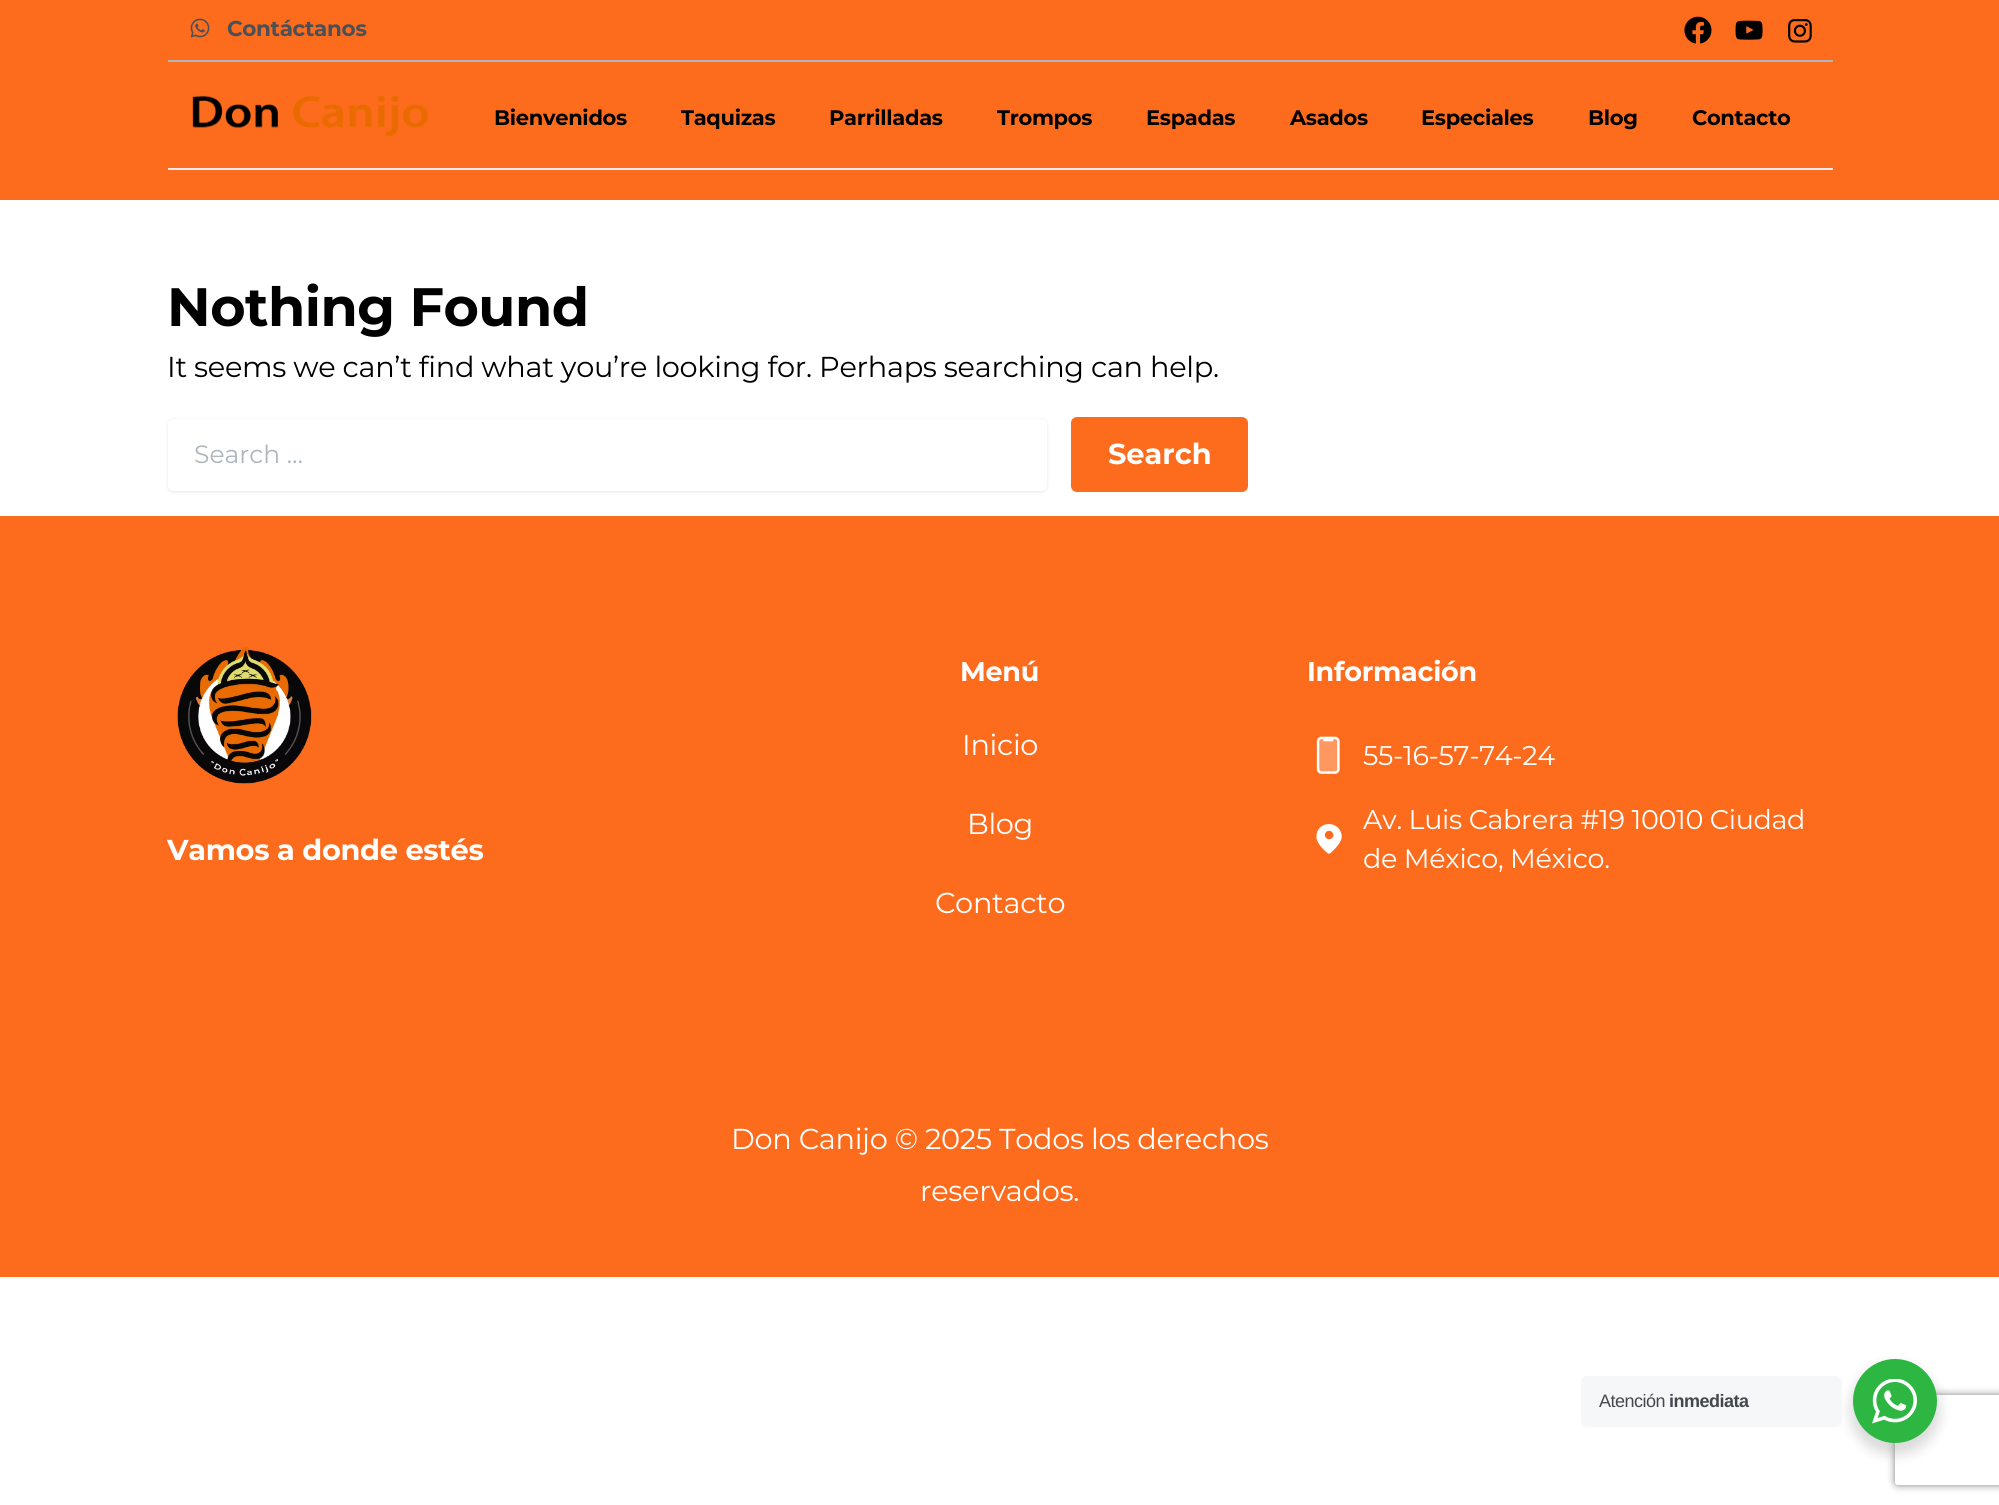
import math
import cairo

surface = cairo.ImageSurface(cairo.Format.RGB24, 1999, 1505)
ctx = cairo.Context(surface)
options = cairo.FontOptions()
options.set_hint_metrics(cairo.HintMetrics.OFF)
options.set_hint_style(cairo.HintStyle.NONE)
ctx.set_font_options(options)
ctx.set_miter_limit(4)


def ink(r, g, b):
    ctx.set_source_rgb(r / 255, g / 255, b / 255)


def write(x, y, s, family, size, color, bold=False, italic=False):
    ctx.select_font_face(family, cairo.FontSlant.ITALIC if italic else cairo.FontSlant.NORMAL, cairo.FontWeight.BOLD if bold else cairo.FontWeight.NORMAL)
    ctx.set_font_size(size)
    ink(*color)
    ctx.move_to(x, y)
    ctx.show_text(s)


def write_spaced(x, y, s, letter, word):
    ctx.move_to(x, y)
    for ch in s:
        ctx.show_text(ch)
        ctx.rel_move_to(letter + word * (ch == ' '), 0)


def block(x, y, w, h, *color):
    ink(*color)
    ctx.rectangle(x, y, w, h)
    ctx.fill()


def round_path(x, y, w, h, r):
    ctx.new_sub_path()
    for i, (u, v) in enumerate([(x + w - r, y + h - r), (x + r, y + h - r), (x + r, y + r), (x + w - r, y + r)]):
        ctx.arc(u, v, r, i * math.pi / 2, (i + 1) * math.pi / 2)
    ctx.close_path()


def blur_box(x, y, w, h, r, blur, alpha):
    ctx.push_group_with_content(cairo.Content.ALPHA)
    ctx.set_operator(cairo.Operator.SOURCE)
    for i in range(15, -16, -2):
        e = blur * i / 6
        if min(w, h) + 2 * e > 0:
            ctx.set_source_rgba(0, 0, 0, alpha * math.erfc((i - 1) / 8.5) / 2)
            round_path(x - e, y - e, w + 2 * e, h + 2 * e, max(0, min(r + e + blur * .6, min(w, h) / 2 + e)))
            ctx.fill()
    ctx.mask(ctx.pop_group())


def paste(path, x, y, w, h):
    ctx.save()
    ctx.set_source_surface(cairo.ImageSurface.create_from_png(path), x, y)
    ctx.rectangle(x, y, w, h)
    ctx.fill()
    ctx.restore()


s1 = dict(family="Montserrat", size=25, color=(173, 181, 189))
s2 = dict(family="Montserrat", size=28.8, color=(255, 255, 255), bold=True)

ink(255, 255, 255)
ctx.paint()
block(0, 0, 1999, 200, 253, 108, 29)
paste("pic1.png", 190, 18, 20, 20)
ctx.select_font_face("Montserrat", cairo.FontSlant.NORMAL, cairo.FontWeight.BOLD)
ctx.set_font_size(21.5)
ink(73, 80, 87)
write_spaced(227, 36, "Contáctanos", -0.3, 0)
paste("pic2.png", 1684, 16, 28, 28)
paste("pic3.png", 1735, 20, 28, 20)
paste("pic4.png", 1788, 19, 24, 24)
block(168, 60, 1665, 2, 173, 181, 189)
paste("pic5.png", 192, 95, 236, 42)
ctx.set_font_size(21)
ink(0, 0, 0)
write_spaced(494, 125, "Bienvenidos", -0.3, 0)
write_spaced(681, 125, "Taquizas", -0.3, 0)
write_spaced(829, 125, "Parrilladas", -0.3, 0)
write_spaced(997, 125, "Trompos", -0.3, 0)
write_spaced(1146, 125, "Espadas", -0.3, 0)
write_spaced(1290, 125, "Asados", -0.3, 0)
write_spaced(1421, 125, "Especiales", -0.3, 0)
write_spaced(1588, 125, "Blog", -0.3, 0)
write_spaced(1692, 125, "Contacto", -0.3, 0)
block(168, 168, 1665, 2, 233, 236, 239)
ctx.set_font_size(54)
ink(0, 0, 0)
write_spaced(167, 326, "Nothing Found", -0.5, 0)
ctx.select_font_face("Montserrat")
ctx.set_font_size(28.8)
write_spaced(167, 377, "It seems we can’t find what you’re looking for. Perhaps searching can help.", -0.3, 0)
ink(0, 0, 0)
blur_box(168, 420, 879, 72, 6, 2, 0.1)
ink(255, 255, 255)
round_path(168, 419, 879, 72, 6)
ctx.fill()
write(194, 463, "Search …", **s1)
ink(253, 108, 29)
round_path(1071, 417, 177, 75, 6)
ctx.fill()
write(1108, 464, "Search", **s2)
block(0, 516, 1999, 761, 253, 108, 29)
paste("pic6.png", 177, 646, 135, 138)
ink(255, 255, 255)
write_spaced(167, 860, "Vamos a donde estés", -0.3, 0)
ctx.set_font_size(27)
write_spaced(960, 681, "Menú", -0.25, 0)
ctx.select_font_face("Montserrat")
ctx.set_font_size(28.8)
write_spaced(962, 755, "Inicio", -0.3, 0)
write_spaced(967, 834, "Blog", -0.3, 0)
write_spaced(935, 913, "Contacto", -0.3, 0)
ctx.select_font_face("Montserrat", cairo.FontSlant.NORMAL, cairo.FontWeight.BOLD)
ctx.set_font_size(27)
write_spaced(1307, 681, "Información", -0.25, 0)
paste("pic7.png", 1316, 736, 24, 38)
ctx.select_font_face("Montserrat")
write_spaced(1363, 765, "55-16-57-74-24", -0.3, 0)
paste("pic8.png", 1316, 824, 26, 30)
write_spaced(1363, 829, "Av. Luis Cabrera #19 10010 Ciudad", -0.3, 0)
write_spaced(1363, 868, "de México, México.", -0.3, 0)
ctx.set_font_size(28.8)
write_spaced(731, 1149, "Don Canijo © 2025 Todos los derechos", -0.3, 0)
write_spaced(920, 1201, "reservados.", -0.3, 0)
ink(0, 0, 0)
blur_box(1850, 1365, 90, 90, 45, 6, 0.14)
ink(245, 247, 249)
round_path(1581, 1376, 261, 51, 6)
ctx.fill()
ctx.select_font_face("Liberation Sans")
ctx.set_font_size(18)
ink(67, 71, 78)
write_spaced(1599, 1407, "Atención", -0.5, 0)
ctx.select_font_face("Liberation Sans", cairo.FontSlant.NORMAL, cairo.FontWeight.BOLD)
write_spaced(1669, 1407, "inmediata", -0.5, 0)
ctx.save()
ctx.set_fill_rule(cairo.FillRule.EVEN_ODD)
ctx.new_path()
ctx.move_to(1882, 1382)
ctx.line_to(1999, 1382)
ctx.line_to(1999, 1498)
ctx.line_to(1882, 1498)
ctx.close_path()
ctx.move_to(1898, 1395)
ctx.line_to(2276, 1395)
ctx.curve_to(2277.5, 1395, 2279, 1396.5, 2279, 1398)
ctx.line_to(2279, 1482)
ctx.curve_to(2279, 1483.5, 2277.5, 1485, 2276, 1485)
ctx.line_to(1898, 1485)
ctx.curve_to(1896.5, 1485, 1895, 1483.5, 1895, 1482)
ctx.line_to(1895, 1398)
ctx.curve_to(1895, 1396.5, 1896.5, 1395, 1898, 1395)
ctx.close_path()
ctx.clip()
ink(128, 128, 128)
blur_box(1895, 1395, 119, 90, 3, 4, 1)
ctx.restore()
ink(45, 183, 66)
ctx.arc(1895, 1401, 42, 0, 2 * math.pi)
ctx.fill()
paste("pic9.png", 1872, 1379, 45, 45)
surface.write_to_png("screenshot.png")
